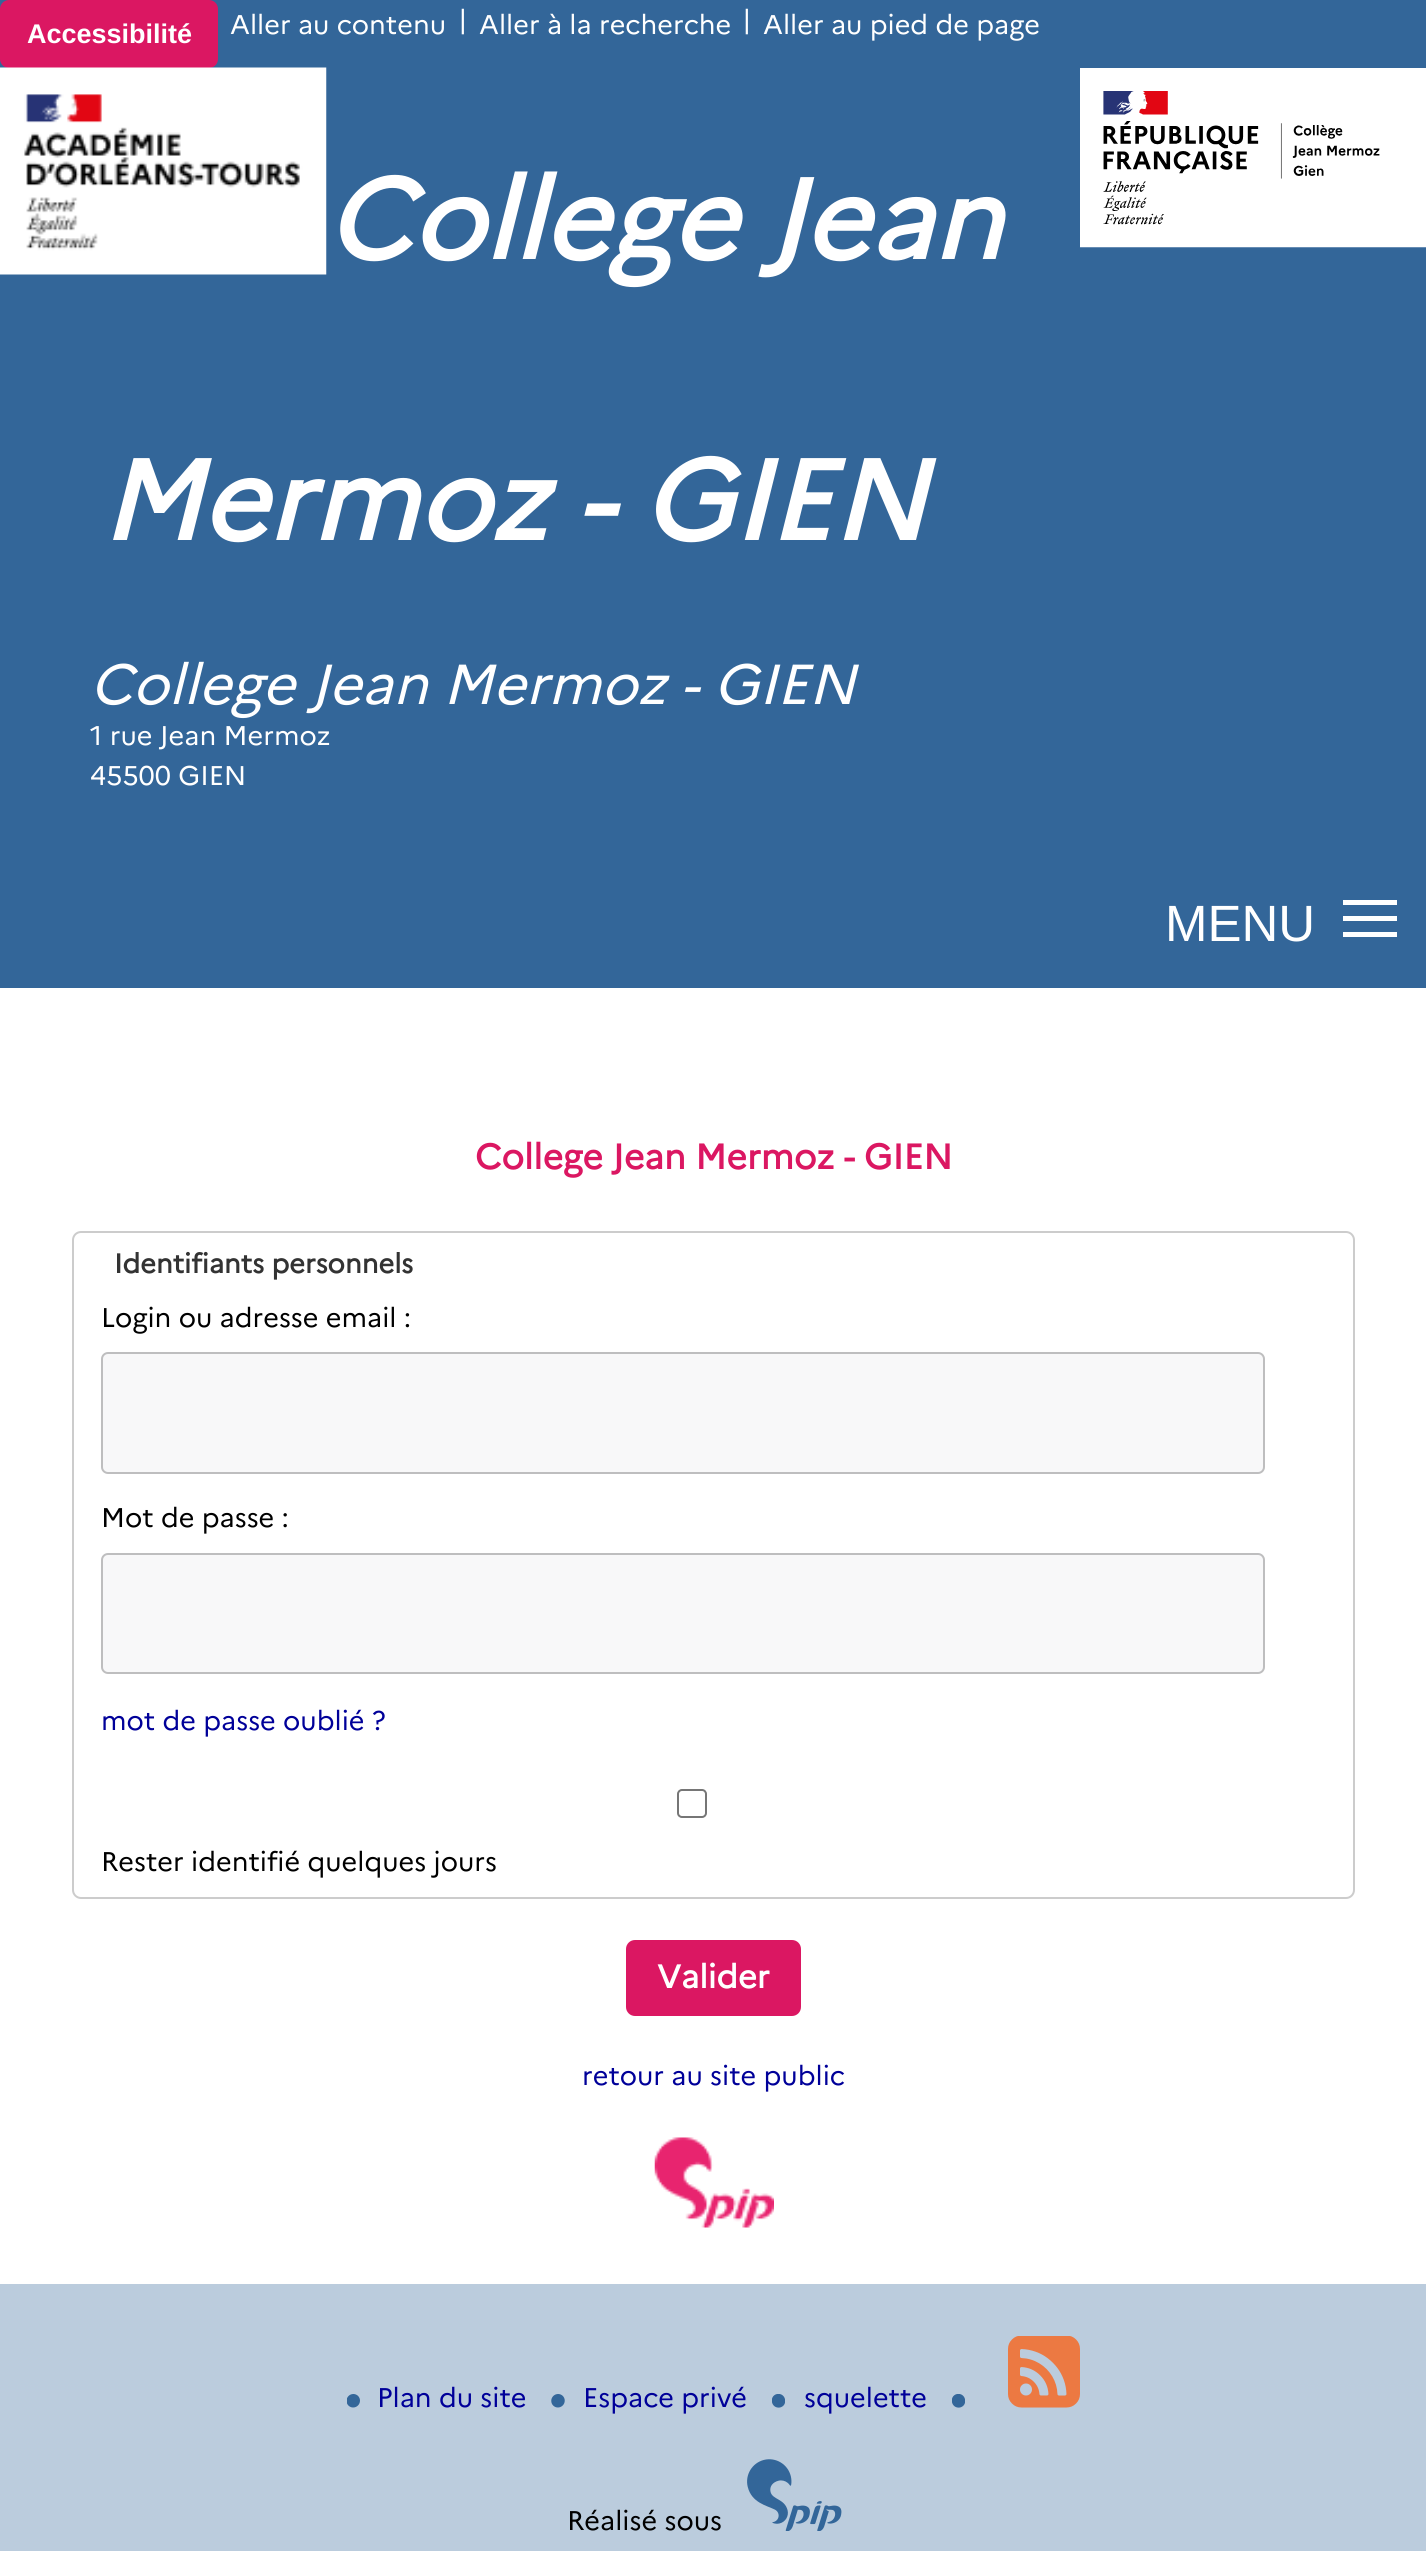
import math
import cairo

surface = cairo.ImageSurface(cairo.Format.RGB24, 1426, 2551)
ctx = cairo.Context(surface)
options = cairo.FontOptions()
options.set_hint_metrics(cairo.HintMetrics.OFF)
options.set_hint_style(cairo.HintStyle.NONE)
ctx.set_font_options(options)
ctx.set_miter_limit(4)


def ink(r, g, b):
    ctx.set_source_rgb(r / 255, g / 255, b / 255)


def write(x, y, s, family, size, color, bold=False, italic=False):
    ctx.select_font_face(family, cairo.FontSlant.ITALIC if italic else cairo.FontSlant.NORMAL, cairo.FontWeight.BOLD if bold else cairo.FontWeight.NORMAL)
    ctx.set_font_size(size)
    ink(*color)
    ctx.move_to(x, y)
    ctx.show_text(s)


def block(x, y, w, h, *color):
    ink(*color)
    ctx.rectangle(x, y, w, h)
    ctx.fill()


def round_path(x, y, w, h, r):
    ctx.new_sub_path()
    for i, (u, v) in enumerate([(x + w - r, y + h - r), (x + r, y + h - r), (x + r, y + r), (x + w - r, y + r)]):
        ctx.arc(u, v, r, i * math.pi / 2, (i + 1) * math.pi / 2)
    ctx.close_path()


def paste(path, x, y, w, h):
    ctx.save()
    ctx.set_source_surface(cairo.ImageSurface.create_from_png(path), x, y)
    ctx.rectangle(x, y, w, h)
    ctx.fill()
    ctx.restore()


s1 = dict(family="Liberation Sans", size=27, color=(255, 255, 255), bold=True)
s2 = dict(family="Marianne", size=27, color=(255, 255, 255))
s3 = dict(family="Marianne", size=112.5, color=(255, 255, 255), bold=True, italic=True)
s4 = dict(family="Marianne", size=56.25, color=(255, 255, 255), italic=True)
s5 = dict(family="Liberation Sans", size=51, color=(255, 255, 255))
s6 = dict(family="Marianne", size=35.1, color=(219, 23, 98), bold=True)
s7 = dict(family="Marianne", size=27, color=(51, 51, 51), bold=True)
s8 = dict(family="Marianne", size=27, color=(0, 0, 0))
s9 = dict(family="Marianne", size=27, color=(0, 0, 153))
s10 = dict(family="Marianne", size=32.5, color=(255, 255, 255), bold=True)

ink(255, 255, 255)
ctx.paint()
block(0, 0, 1426, 988, 51, 102, 153)
ink(219, 23, 98)
round_path(0, 0, 218, 68, 9)
ctx.fill()
write(27, 43, "Accessibilité", **s1)
write(230, 34, "Aller au contenu", **s2)
write(458, 29, "|", **s2)
write(479, 34, "Aller à la recherche", **s2)
write(742, 29, "|", **s2)
write(763, 34, "Aller au pied de page", **s2)
paste("pic1.png", 0, 67, 327, 208)
paste("pic2.png", 1080, 68, 346, 180)
write(326, 259, "College Jean", **s3)
write(101, 540, "Mermoz - GIEN", **s3)
write(90, 704, "College Jean Mermoz - GIEN", **s4)
write(90, 745, "1 rue Jean Mermoz", **s2)
write(90, 785, "45500 GIEN", **s2)
write(1165, 941, "MENU", **s5)
block(1343, 916, 54, 5, 255, 255, 255)
block(1343, 900, 54, 5, 255, 255, 255)
block(1343, 932, 54, 5, 255, 255, 255)
write(475, 1169, "College Jean Mermoz - GIEN", **s6)
round_path(73, 1232, 1281, 666, 8)
ink(204, 204, 204)
ctx.stroke()
write(114, 1273, "Identifiants personnels", **s7)
write(101, 1327, "Login ou adresse email :", **s8)
ink(248, 248, 249)
round_path(102, 1353, 1162, 120, 6)
ctx.fill_preserve()
ink(190, 190, 191)
ctx.stroke()
write(101, 1527, "Mot de passe :", **s8)
ink(248, 248, 249)
round_path(102, 1554, 1162, 119, 6)
ctx.fill_preserve()
ink(190, 190, 191)
ctx.stroke()
write(101, 1730, "mot de passe oublié ?", **s9)
round_path(678, 1790, 28, 27, 4)
ink(118, 118, 118)
ctx.stroke()
write(101, 1871, "Rester identifié quelques jours", **s8)
ink(219, 23, 98)
round_path(626, 1940, 175, 76, 9)
ctx.fill()
write(657, 1988, "Valider", **s10)
write(582, 2085, "retour au site public", **s9)
paste("pic3.png", 654, 2137, 120, 91)
block(0, 2284, 1426, 267, 187, 204, 221)
paste("pic4.png", 347, 2394, 13, 14)
write(377, 2407, "Plan du site", **s9)
paste("pic5.png", 551, 2394, 14, 14)
write(583, 2407, "Espace privé", **s9)
write(804, 2407, "squelette", **s9)
ctx.save()
ctx.rectangle(772, 2394, 13, 14)
ctx.clip()
ink(51, 102, 153)
ctx.set_fill_rule(cairo.FillRule.EVEN_ODD)
ctx.new_path()
ctx.move_to(777, 2394)
ctx.curve_to(786, 2392.5, 788.5, 2405.5, 780, 2407.5)
ctx.curve_to(771, 2409, 768.5, 2396, 777, 2394)
ctx.close_path()
ctx.fill()
ctx.restore()
ctx.save()
ctx.rectangle(952, 2394, 13, 14)
ctx.clip()
ink(51, 102, 153)
ctx.set_fill_rule(cairo.FillRule.EVEN_ODD)
ctx.new_path()
ctx.move_to(957, 2394)
ctx.curve_to(966, 2392.5, 968.5, 2405.5, 960, 2407.5)
ctx.curve_to(951, 2409, 948.5, 2396, 957, 2394)
ctx.close_path()
ctx.fill()
ctx.restore()
paste("pic6.png", 1008, 2336, 72, 72)
write(567, 2530, "Réalisé sous", **s8)
paste("pic7.png", 747, 2459, 95, 72)
surface.write_to_png("screenshot.png")
